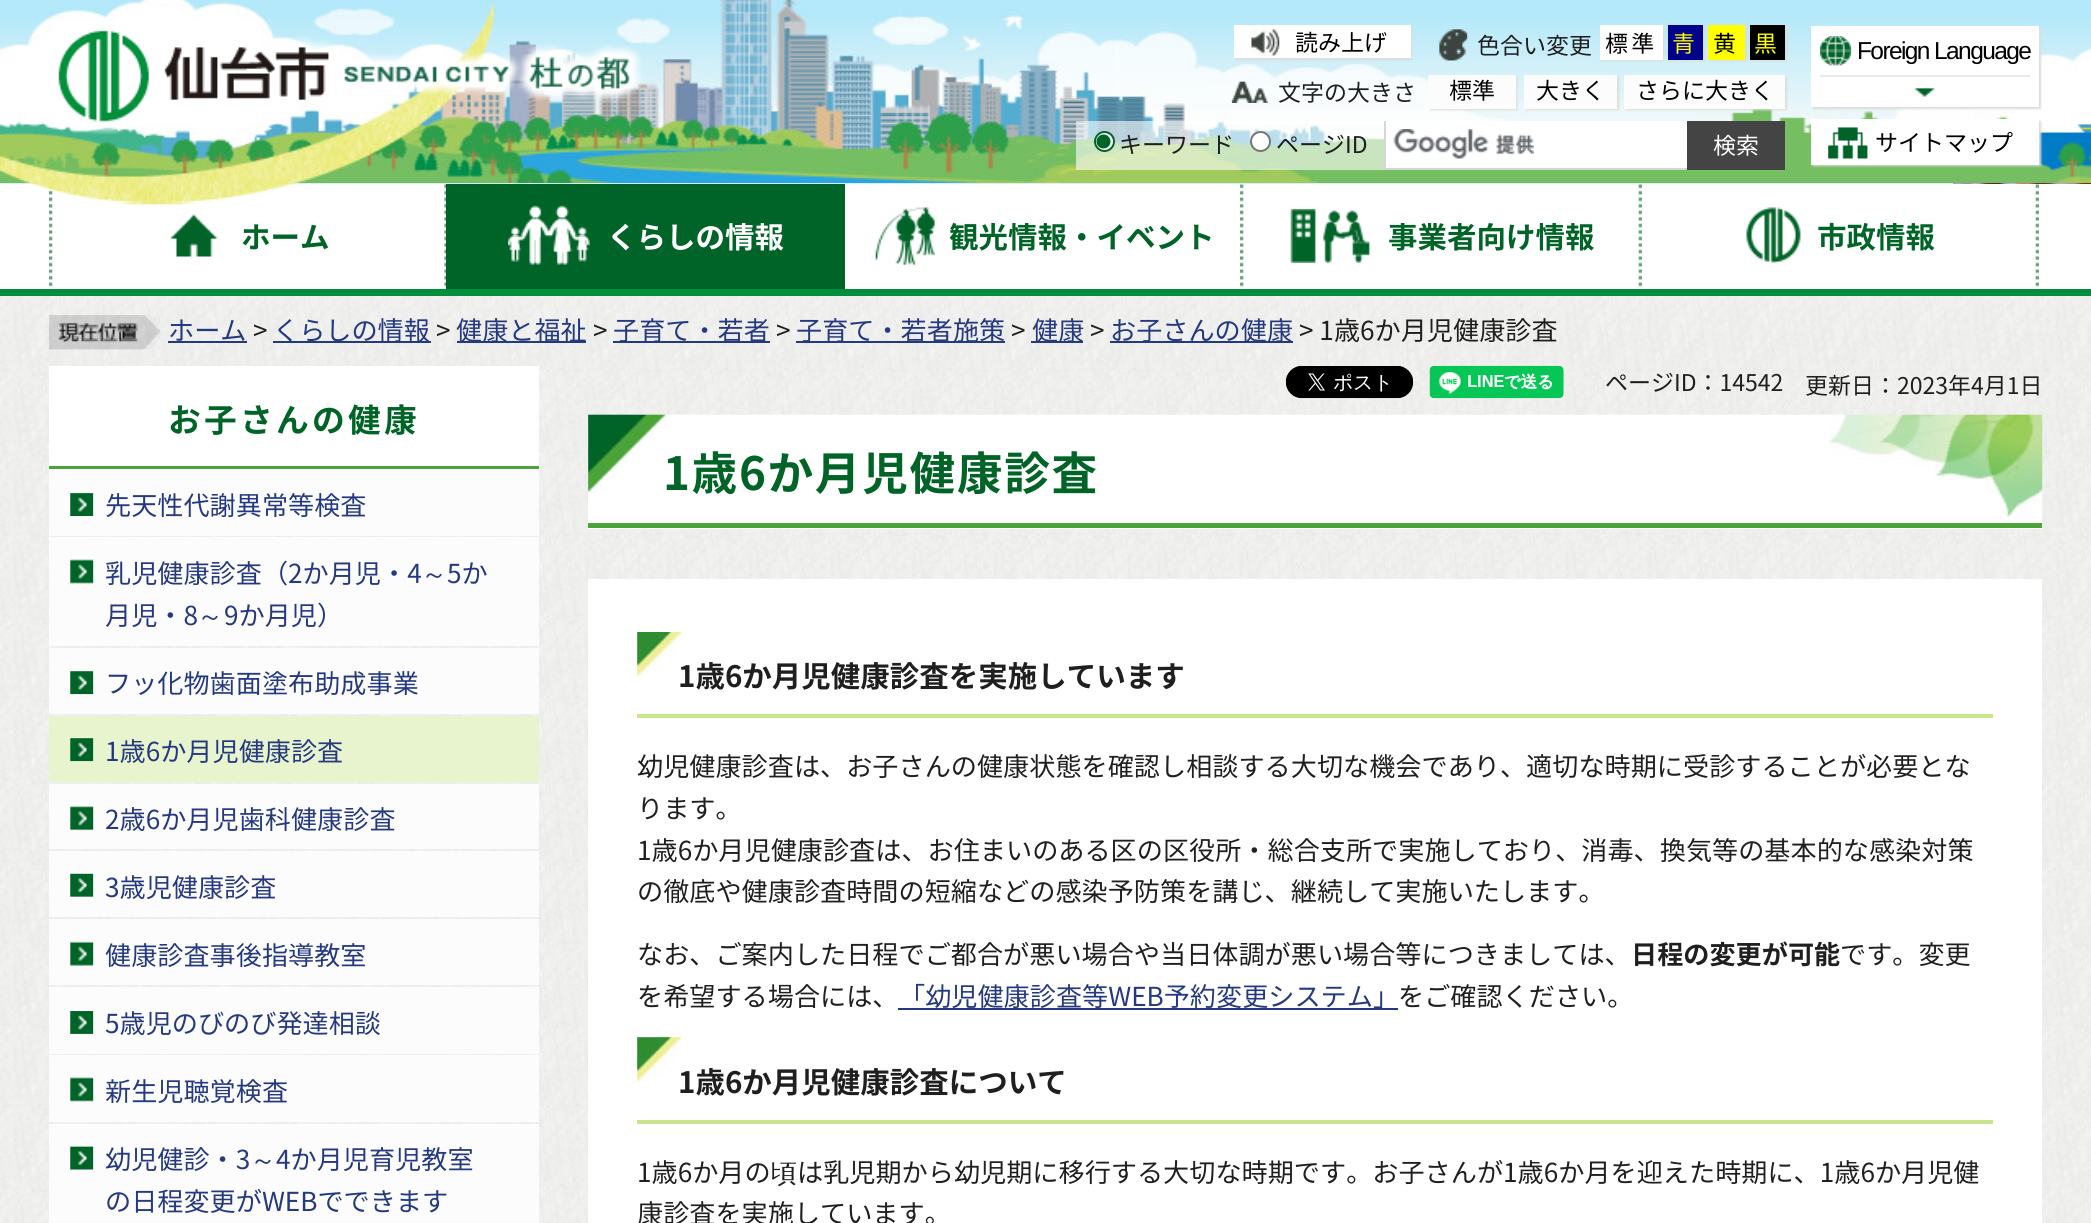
import math
import cairo

surface = cairo.ImageSurface(cairo.Format.RGB24, 2091, 1223)
ctx = cairo.Context(surface)
options = cairo.FontOptions()
options.set_hint_metrics(cairo.HintMetrics.OFF)
options.set_hint_style(cairo.HintStyle.NONE)
ctx.set_font_options(options)
ctx.set_miter_limit(4)


def ink(r, g, b):
    ctx.set_source_rgb(r / 255, g / 255, b / 255)


def write(x, y, s, family, size, color, bold=False, italic=False):
    ctx.select_font_face(family, cairo.FontSlant.ITALIC if italic else cairo.FontSlant.NORMAL, cairo.FontWeight.BOLD if bold else cairo.FontWeight.NORMAL)
    ctx.set_font_size(size)
    ink(*color)
    ctx.move_to(x, y)
    ctx.show_text(s)


def write_spaced(x, y, s, letter, word):
    ctx.move_to(x, y)
    for ch in s:
        ctx.show_text(ch)
        ctx.rel_move_to(letter + word * (ch == ' '), 0)


def block(x, y, w, h, *color):
    ink(*color)
    ctx.rectangle(x, y, w, h)
    ctx.fill()


def round_path(x, y, w, h, r):
    ctx.new_sub_path()
    for i, (u, v) in enumerate([(x + w - r, y + h - r), (x + r, y + h - r), (x + r, y + r), (x + w - r, y + r)]):
        ctx.arc(u, v, r, i * math.pi / 2, (i + 1) * math.pi / 2)
    ctx.close_path()


def blur_box(x, y, w, h, r, blur, alpha):
    ctx.push_group_with_content(cairo.Content.ALPHA)
    ctx.set_operator(cairo.Operator.SOURCE)
    for i in range(15, -16, -2):
        e = blur * i / 6
        if min(w, h) + 2 * e > 0:
            ctx.set_source_rgba(0, 0, 0, alpha * math.erfc((i - 1) / 8.5) / 2)
            round_path(x - e, y - e, w + 2 * e, h + 2 * e, max(0, min(r + e + blur * .6, min(w, h) / 2 + e)))
            ctx.fill()
    ctx.mask(ctx.pop_group())


def paste(path, x, y, w, h):
    ctx.save()
    ctx.set_source_surface(cairo.ImageSurface.create_from_png(path), x, y)
    ctx.rectangle(x, y, w, h)
    ctx.fill()
    ctx.restore()


s1 = dict(family="Noto Sans JP", size=23, color=(0, 0, 0))
s2 = dict(family="Noto Sans JP", size=23, color=(31, 31, 31))
s3 = dict(family="Noto Sans JP", size=23, color=(255, 255, 255))
s4 = dict(family="Noto Sans JP", size=29.5, color=(0, 100, 38), bold=True)
s5 = dict(family="Noto Sans JP", size=29.5, color=(255, 255, 255), bold=True)
s6 = dict(family="Noto Sans JP", size=26.15, color=(36, 57, 127))
s7 = dict(family="Noto Sans JP", size=26.15, color=(31, 31, 31))
s8 = dict(family="WenQuanYi Zen Hei Medium", size=26.15, color=(36, 57, 127))
s9 = dict(family="Noto Sans JP", size=29.5, color=(31, 31, 31), bold=True)
s10 = dict(family="Noto Sans JP", size=26.15, color=(31, 31, 31), bold=True)
s11 = dict(family="WenQuanYi Zen Hei Medium", size=26.15, color=(31, 31, 31))

ink(255, 255, 255)
ctx.paint()
block(0, 182, 1953, 2, 212, 240, 251)
paste("pic1.png", 0, 182, 1953, 1)
paste("pic22.png", 1953, 182, 138, 2)
paste("pic2.png", 0, 0, 2091, 183)
paste("pic3.png", 58, 30, 584, 104)
ink(220, 221, 217)
blur_box(1236, 26, 176, 34, 0, 1, 1)
block(1234, 25, 177, 33, 255, 255, 255)
paste("pic4.png", 1251, 29, 29, 27)
write(1295, 51, "読み上げ", **s1)
paste("pic5.png", 1439, 29, 29, 32)
write(1477, 54, "色合い変更", **s2)
ink(220, 221, 217)
blur_box(1601, 26, 63, 35, 0, 1, 1)
block(1600, 25, 63, 35, 255, 255, 255)
ink(0, 0, 0)
write_spaced(1605, 52, "標準", 3.25, 0)
ink(220, 221, 217)
blur_box(1670, 26, 35, 35, 0, 1, 1)
block(1668, 25, 35, 35, 0, 0, 139)
ink(255, 255, 0)
write_spaced(1672, 52, "青", 3.25, 0)
ink(220, 221, 217)
blur_box(1710, 26, 37, 35, 0, 1, 1)
block(1708, 25, 37, 35, 255, 255, 0)
ink(0, 0, 0)
write_spaced(1713, 52, "黄", 3.25, 0)
ink(220, 221, 217)
blur_box(1752, 26, 35, 35, 0, 1, 1)
block(1750, 25, 35, 35, 0, 0, 0)
ink(255, 255, 0)
write_spaced(1754, 52, "黒", 3.25, 0)
paste("pic6.png", 1231, 81, 37, 22)
write(1278, 101, "文字の大きさ", **s2)
ink(220, 221, 217)
blur_box(1430, 77, 87, 33, 0, 1, 1)
block(1428, 75, 88, 34, 252, 252, 252)
write(1449, 99, "標準", **s1)
ink(220, 221, 217)
blur_box(1526, 77, 93, 33, 0, 1, 1)
block(1524, 75, 93, 34, 252, 252, 252)
write(1536, 99, "大きく", **s1)
ink(220, 221, 217)
blur_box(1626, 77, 161, 33, 0, 1, 1)
block(1624, 75, 161, 34, 252, 252, 252)
write(1636, 99, "さらに大きく", **s1)
ctx.set_source_rgba(1, 1, 1, 0.6)
ctx.rectangle(1076, 121, 308, 49)
ctx.fill()
ink(255, 255, 255)
ctx.arc(1104.5, 141.5, 9.5, 0, 2 * math.pi)
ctx.fill_preserve()
ink(0, 100, 40)
ctx.stroke()
ctx.arc(1103.5, 141.5, 7, 0, 2 * math.pi)
ctx.fill()
write(1119, 153, "キーワード", **s2)
ink(255, 255, 255)
ctx.new_path()
ctx.arc(1260.5, 141.5, 9.5, 0, 2 * math.pi)
ctx.fill_preserve()
ink(118, 118, 118)
ctx.stroke()
write(1276, 153, "ページID", **s2)
block(1386, 121, 301, 47, 255, 255, 255)
paste("pic7.png", 1393, 129, 142, 30)
block(1384, 168, 303, 2, 214, 214, 214)
block(1384, 121, 2, 49, 214, 214, 214)
block(1687, 121, 98, 49, 68, 68, 68)
write(1713, 154, "検索", **s3)
ink(220, 221, 217)
blur_box(1813, 28, 228, 81, 0, 1, 1)
block(1811, 26, 228, 81, 255, 255, 255)
paste("pic8.png", 1820, 36, 32, 30)
ctx.select_font_face("Liberation Sans")
ctx.set_font_size(24.5)
ink(0, 0, 0)
write_spaced(1857, 59, "Foreign Language", -1.6, 0)
block(1820, 75, 210, 2, 233, 233, 233)
paste("pic9.png", 1914, 88, 21, 9)
ink(220, 221, 217)
blur_box(1813, 121, 228, 45, 0, 1, 1)
block(1811, 119, 228, 46, 255, 255, 255)
paste("pic10.png", 1828, 127, 40, 32)
write(1875, 151, "サイトマップ", **s1)
block(0, 289, 2091, 7, 0, 143, 58)
paste("pic12.png", 49, 187, 4, 100)
paste("pic11.png", 30, 183, 266, 22)
paste("pic13.png", 444, 184, 2, 103)
paste("pic14.png", 170, 214, 48, 43)
write(241, 248, "ホーム", **s4)
block(446, 184, 399, 105, 0, 100, 40)
paste("pic15.png", 508, 205, 82, 60)
write(607, 248, "くらしの情報", **s5)
paste("pic16.png", 1240, 184, 4, 103)
paste("pic17.png", 875, 207, 60, 58)
write(949, 248, "観光情報・イベント", **s4)
paste("pic18.png", 1638, 184, 4, 103)
paste("pic19.png", 1290, 209, 81, 55)
write(1388, 248, "事業者向け情報", **s4)
paste("pic20.png", 2035, 184, 4, 103)
paste("pic21.png", 1746, 207, 55, 56)
write(1817, 248, "市政情報", **s4)
paste("pic23.png", 0, 296, 2091, 927)
paste("pic24.png", 49, 315, 111, 35)
write(168, 340, "ホーム", **s6)
block(168, 341, 79, 2, 36, 57, 127)
write(253, 340, ">", **s7)
block(273, 341, 158, 2, 36, 57, 127)
write(273, 340, "くらしの情報", **s6)
write(436, 340, ">", **s7)
block(457, 341, 129, 2, 36, 57, 127)
write(456, 340, "健康と福祉", **s6)
write(593, 340, ">", **s7)
block(613, 341, 157, 2, 36, 57, 127)
write(613, 340, "子育て・若者", **s6)
write(776, 340, ">", **s7)
block(796, 341, 209, 2, 36, 57, 127)
write(796, 340, "子育て・若者施策", **s6)
write(1011, 340, ">", **s7)
block(1031, 341, 52, 2, 36, 57, 127)
write(1032, 340, "健康", **s6)
write(1090, 340, ">", **s7)
block(1110, 341, 183, 2, 36, 57, 127)
write(1110, 340, "お子さんの健康", **s6)
write(1299, 340, "> 1歳6か月児健康診査", **s7)
block(49, 366, 490, 100, 255, 255, 255)
block(49, 466, 490, 3, 74, 164, 55)
ctx.select_font_face("Noto Sans JP", cairo.FontSlant.NORMAL, cairo.FontWeight.BOLD)
ctx.set_font_size(32.75)
ink(0, 100, 38)
write_spaced(168, 432, "お子さんの健康", 3.25, 0)
block(49, 469, 490, 67, 252, 252, 252)
paste("pic25.png", 70, 493, 24, 23)
write(105, 515, "先天性代謝異常等検査", **s6)
block(49, 537, 490, 109, 252, 252, 252)
paste("pic26.png", 70, 559, 24, 25)
write(105, 583, "乳児健康診査（2か月児・4", **s6)
write(421, 583, "～", **s8)
write(447, 583, "5か", **s6)
write(105, 625, "月児・8", **s6)
write(197, 625, "～", **s8)
write(224, 625, "9か月児）", **s6)
block(49, 648, 490, 66, 252, 252, 252)
paste("pic27.png", 70, 671, 24, 24)
write(105, 693, "フッ化物歯面塗布助成事業", **s6)
block(49, 716, 490, 66, 231, 244, 206)
paste("pic28.png", 70, 738, 24, 24)
write(105, 761, "1歳6か月児健康診査", **s6)
block(49, 784, 490, 65, 252, 252, 252)
paste("pic29.png", 70, 806, 24, 25)
write(105, 829, "2歳6か月児歯科健康診査", **s6)
block(49, 851, 490, 66, 252, 252, 252)
paste("pic30.png", 70, 873, 24, 24)
write(105, 897, "3歳児健康診査", **s6)
block(49, 919, 490, 66, 252, 252, 252)
paste("pic31.png", 70, 941, 24, 25)
write(105, 965, "健康診査事後指導教室", **s6)
block(49, 987, 490, 67, 252, 252, 252)
paste("pic32.png", 70, 1011, 24, 23)
write(105, 1033, "5歳児のびのび発達相談", **s6)
block(49, 1055, 490, 67, 252, 252, 252)
paste("pic33.png", 70, 1077, 24, 25)
write(105, 1101, "新生児聴覚検査", **s6)
block(49, 1124, 490, 99, 252, 252, 252)
paste("pic34.png", 70, 1146, 24, 24)
write(105, 1169, "幼児健診・3", **s6)
write(250, 1169, "～", **s8)
write(276, 1169, "4か月児育児教室", **s6)
write(105, 1211, "の日程変更がWEBでできます", **s6)
paste("pic35.png", 1286, 366, 128, 33)
paste("pic36.png", 1429, 365, 135, 34)
write(1605, 391, "ページID：14542", **s2)
write(1805, 394, "更新日：2023年4月1日", **s2)
block(588, 415, 1454, 114, 255, 255, 255)
paste("pic37.png", 588, 414, 1455, 104)
block(588, 523, 1454, 5, 74, 164, 55)
ctx.select_font_face("Noto Sans JP", cairo.FontSlant.NORMAL, cairo.FontWeight.BOLD)
ctx.set_font_size(45.75)
ink(0, 100, 38)
write_spaced(663, 490, "1歳6か月児健康診査", 1.6, 0)
block(588, 579, 1454, 644, 255, 255, 255)
paste("pic38.png", 637, 632, 45, 45)
block(637, 714, 1356, 4, 200, 231, 141)
write(678, 687, "1歳6か月児健康診査を実施しています", **s9)
write(637, 776, "幼児健康診査は、お子さんの健康状態を確認し相談する大切な機会であり、適切な時期に受診することが必要とな", **s7)
write(637, 818, "ります。", **s7)
write(637, 860, "1歳6か月児健康診査は、お住まいのある区の区役所・総合支所で実施しており、消毒、換気等の基本的な感染対策", **s7)
write(637, 901, "の徹底や健康診査時間の短縮などの感染予防策を講じ、継続して実施いたします。", **s7)
write(637, 964, "なお、ご案内した日程でご都合が悪い場合や当日体調が悪い場合等につきましては、", **s7)
write(1631, 964, "日程の変更が可能", **s10)
write(1840, 964, "です。変更", **s7)
write(637, 1006, "を希望する場合には、", **s7)
block(898, 1008, 500, 2, 36, 57, 127)
write(899, 1006, "「幼児健康診査等WEB予約変更システム」", **s6)
write(1398, 1006, "をご確認ください。", **s7)
paste("pic39.png", 637, 1037, 45, 45)
block(637, 1120, 1356, 4, 200, 231, 141)
write(678, 1093, "1歳6か月児健康診査について", **s9)
write(637, 1182, "1歳6か月の", **s7)
write(771, 1182, "頃", **s11)
write(797, 1182, "は乳児期から幼児期に移行する大切な時期です。お子さんが1歳6か月を迎えた時期に、1歳6か月児健", **s7)
write(637, 1223, "康診査を実施しています。", **s7)
surface.write_to_png("screenshot.png")
